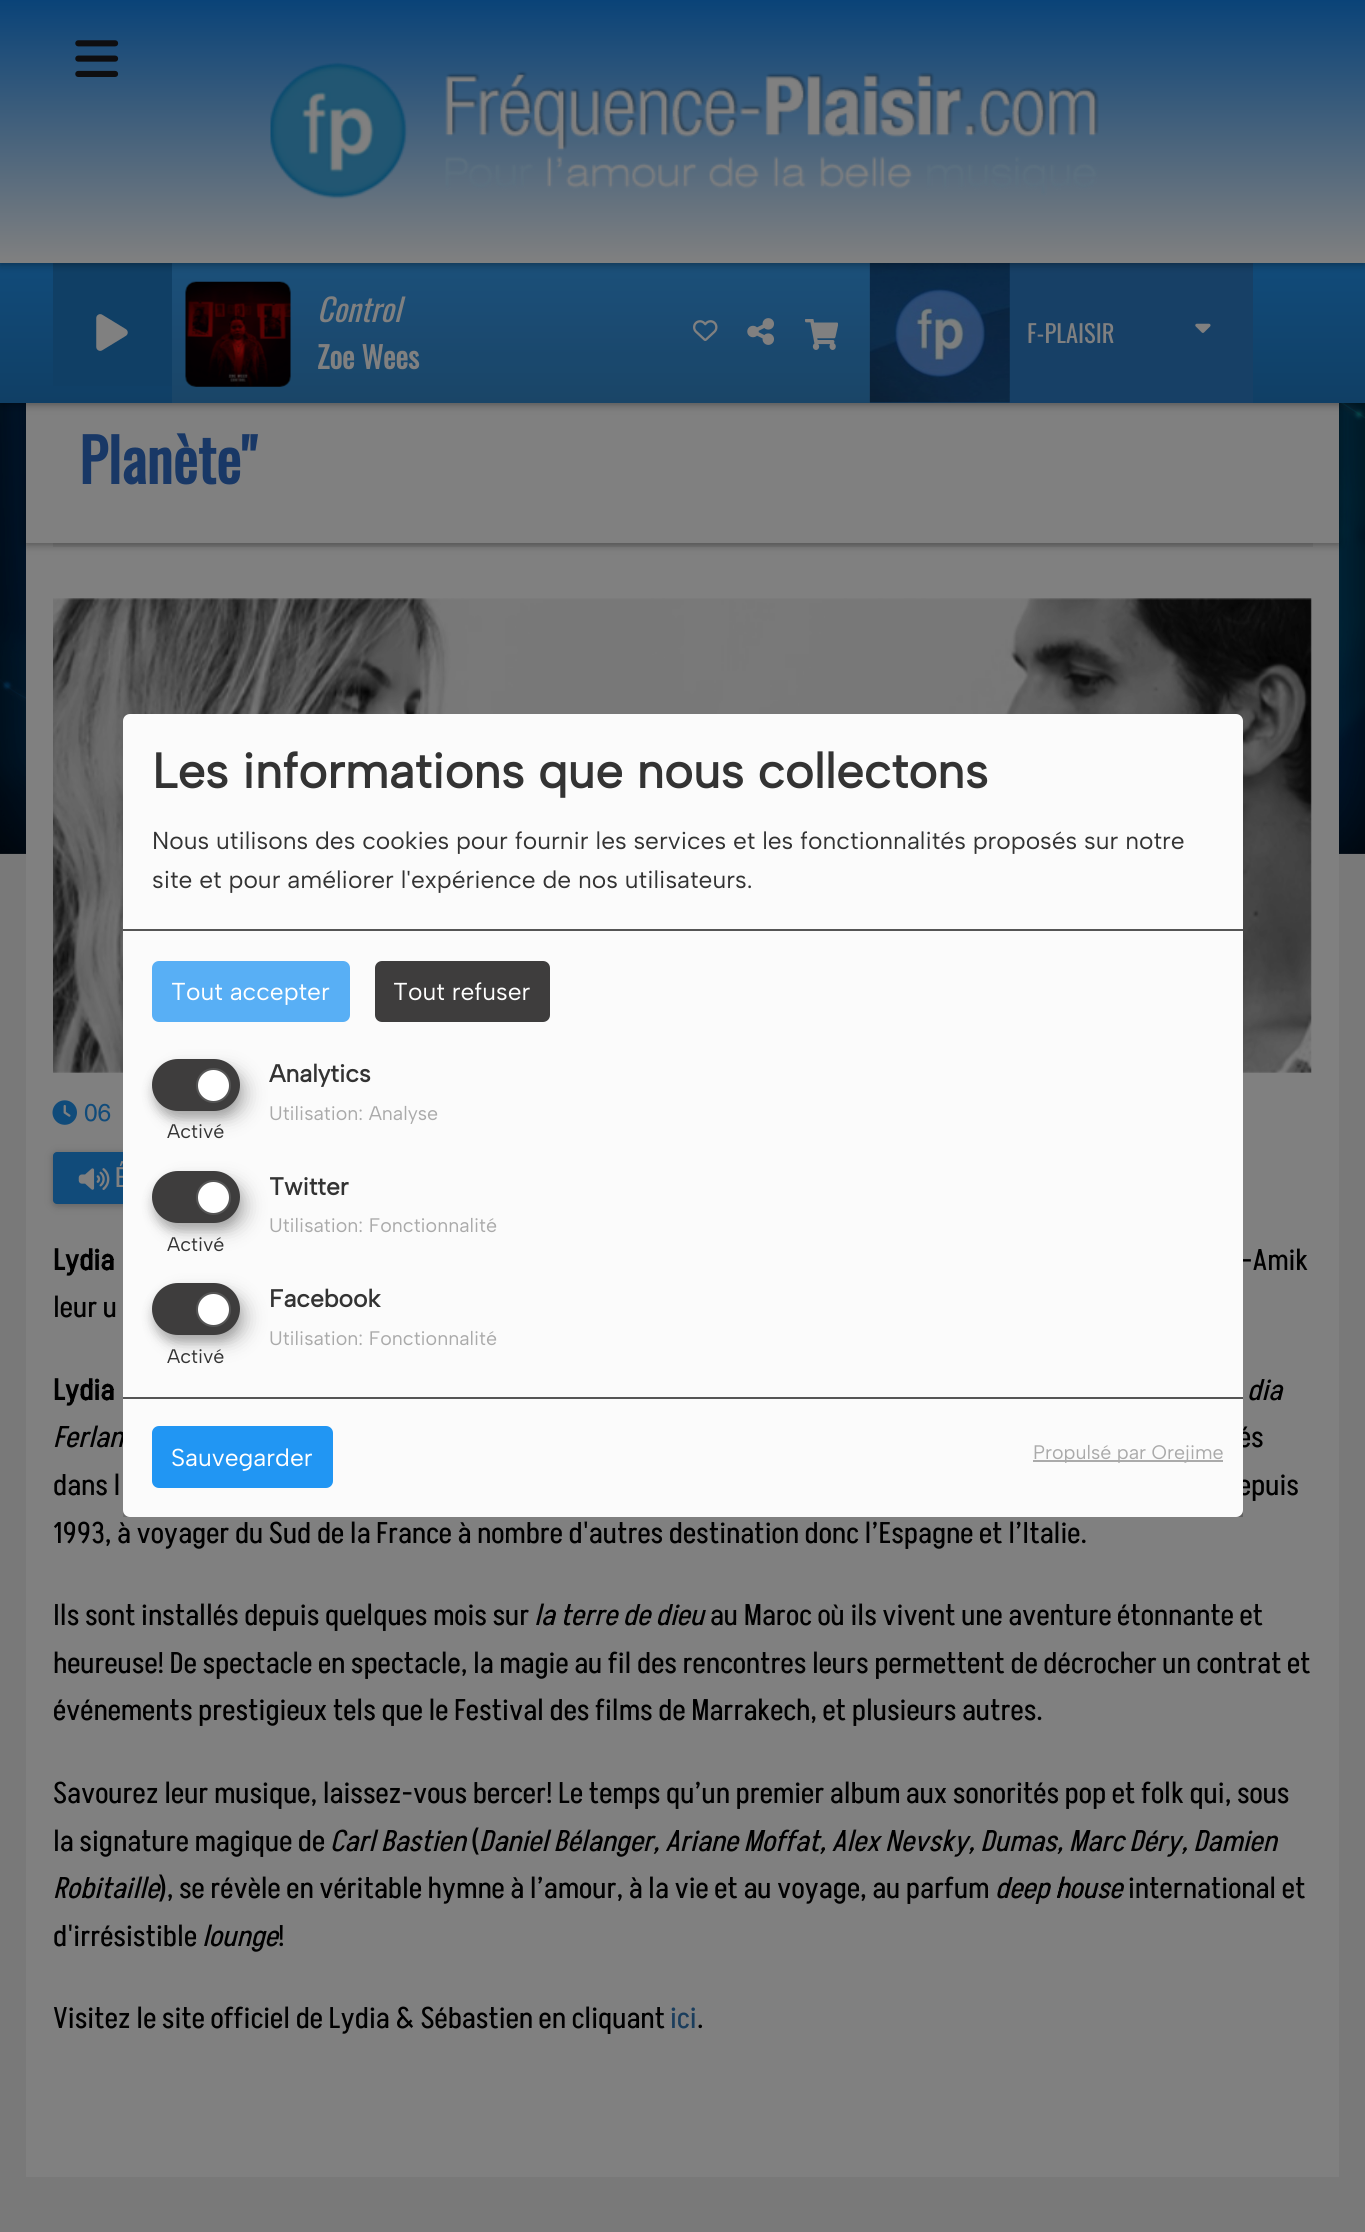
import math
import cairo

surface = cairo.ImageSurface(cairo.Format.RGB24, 1365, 2232)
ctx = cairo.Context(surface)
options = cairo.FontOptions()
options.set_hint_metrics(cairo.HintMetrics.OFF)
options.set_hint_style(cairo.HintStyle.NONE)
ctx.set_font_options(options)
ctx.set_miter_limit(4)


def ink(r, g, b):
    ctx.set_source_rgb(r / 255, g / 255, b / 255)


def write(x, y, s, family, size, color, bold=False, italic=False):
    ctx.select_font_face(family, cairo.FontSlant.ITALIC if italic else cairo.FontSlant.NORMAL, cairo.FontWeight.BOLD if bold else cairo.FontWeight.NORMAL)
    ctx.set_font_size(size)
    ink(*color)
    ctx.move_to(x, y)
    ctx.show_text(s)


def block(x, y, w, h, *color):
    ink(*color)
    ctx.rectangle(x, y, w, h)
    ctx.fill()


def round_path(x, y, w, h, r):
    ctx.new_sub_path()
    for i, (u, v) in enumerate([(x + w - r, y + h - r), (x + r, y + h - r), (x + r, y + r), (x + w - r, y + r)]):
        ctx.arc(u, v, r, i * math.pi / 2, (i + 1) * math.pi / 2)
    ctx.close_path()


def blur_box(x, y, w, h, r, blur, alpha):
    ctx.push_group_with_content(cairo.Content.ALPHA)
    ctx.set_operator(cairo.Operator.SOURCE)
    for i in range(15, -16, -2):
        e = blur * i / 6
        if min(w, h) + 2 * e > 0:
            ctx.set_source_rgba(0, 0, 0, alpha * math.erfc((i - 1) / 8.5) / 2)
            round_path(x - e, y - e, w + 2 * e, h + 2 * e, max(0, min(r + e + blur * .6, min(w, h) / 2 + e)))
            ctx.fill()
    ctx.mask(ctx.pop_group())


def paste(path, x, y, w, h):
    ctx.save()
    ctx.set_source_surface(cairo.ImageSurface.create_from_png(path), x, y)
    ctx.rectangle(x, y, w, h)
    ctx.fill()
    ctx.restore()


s1 = dict(family="Oswald", size=31.5, color=(128, 128, 128), italic=True)
s2 = dict(family="Oswald", size=29.75, color=(128, 128, 128), bold=True)
s3 = dict(family="Oswald", size=24.5, color=(128, 128, 128))
s4 = dict(family="Oswald", size=59.5, color=(25, 56, 102), bold=True)
s5 = dict(family="Helvetica", size=24.5, color=(17, 75, 122))
s6 = dict(family="Akshar", size=29.75, color=(0, 0, 0), bold=True)
s7 = dict(family="Akshar", size=29.75, color=(0, 0, 0))
s8 = dict(family="Akshar", size=29.75, color=(0, 0, 0), italic=True)
s9 = dict(family="Akshar", size=29.75, color=(26, 61, 92))
s10 = dict(family="Albert Sans", size=49, color=(51, 51, 51), bold=True)
s11 = dict(family="Albert Sans", size=24.5, color=(51, 51, 51))
s12 = dict(family="Albert Sans", size=24.5, color=(255, 255, 255))
s13 = dict(family="Albert Sans", size=24.5, color=(51, 51, 51), bold=True)
s14 = dict(family="Albert Sans", size=19.6, color=(51, 51, 51))
s15 = dict(family="Albert Sans", size=19.6, color=(170, 170, 170))

ink(121, 121, 121)
ctx.paint()
paste("pic1.png", 0, 403, 1365, 451)
block(26, 543, 1313, 1634, 128, 128, 128)
block(53, 543, 1260, 4, 119, 119, 119)
ink(0, 0, 0)
blur_box(26, 326, 1313, 218, 0, 4.5, 0.4)
block(26, 403, 1313, 140, 128, 128, 128)
ink(0, 0, 0)
blur_box(0, 264, 1365, 140, 0, 4.5, 0.4)
gradient = cairo.LinearGradient(683, 262, 683, 403)
gradient.add_color_stop_rgba(0, 0.067, 0.294, 0.478, 1)
gradient.add_color_stop_rgba(1, 0.063, 0.247, 0.396, 1)
ctx.set_source(gradient)
ctx.rectangle(0, 263, 1365, 140)
ctx.fill()
block(53, 263, 119, 123, 16, 63, 101)
block(870, 263, 383, 140, 23, 64, 102)
paste("pic9.png", 869, 263, 141, 140)
ctx.set_source_rgba(0.502, 0.502, 0.502, 0.1)
ctx.rectangle(172, 263, 698, 140)
ctx.fill()
ink(0, 0, 0)
blur_box(0, 2, 1365, 262, 0, 4.5, 0.4)
gradient = cairo.LinearGradient(683, 0, 683, 263)
gradient.add_color_stop_rgba(0, 0.039, 0.263, 0.471, 1)
gradient.add_color_stop_rgba(1, 0.502, 0.502, 0.502, 1)
ctx.set_source(gradient)
ctx.rectangle(0, 0, 1365, 263)
ctx.fill()
paste("pic2.png", 75, 40, 44, 37)
paste("pic3.png", 270, 62, 829, 137)
paste("pic4.png", 96, 314, 32, 37)
paste("pic5.png", 185, 281, 106, 106)
write(317, 322, "Control", **s1)
write(317, 369, "Zoe Wees", **s2)
paste("pic6.png", 693, 320, 25, 21)
paste("pic7.png", 747, 318, 27, 27)
paste("pic8.png", 805, 319, 33, 31)
write(1027, 343, "F-PLAISIR", **s3)
paste("pic10.png", 1195, 323, 16, 10)
write(79, 484, "Planète\"", **s4)
paste("pic11.png", 53, 598, 1259, 475)
paste("pic12.png", 52, 1100, 25, 25)
write(84, 1121, "06", **s5)
ink(0, 0, 0)
blur_box(53, 1153, 252, 53, 4, 3.5, 0.12)
blur_box(53, 1153, 252, 53, 4, 5, 0.12)
ink(17, 75, 122)
round_path(53, 1152, 252, 52, 4)
ctx.fill()
paste("pic13.png", 78, 1168, 32, 22)
write(115, 1187, "É", **s3)
write(53, 1270, "Lydia", **s6)
write(1241, 1270, "-Amik", **s7)
write(53, 1317, "leur u", **s7)
write(53, 1400, "Lydia", **s6)
write(1247, 1400, "dia", **s8)
write(53, 1447, "Ferlan", **s8)
write(1238, 1447, "és", **s7)
write(53, 1495, "dans l", **s7)
write(1238, 1495, "epuis", **s7)
write(53, 1543, "1993, à voyager du Sud de la France à nombre d'autres destination donc l’Espagne et l’Italie.", **s7)
write(53, 1625, "Ils sont installés depuis quelques mois sur", **s7)
write(534, 1625, "la terre de dieu", **s8)
write(710, 1625, "au Maroc où ils vivent une aventure étonnante et", **s7)
write(53, 1673, "heureuse! De spectacle en spectacle, la magie au fil des rencontres leurs permettent de décrocher un contrat et", **s7)
write(53, 1720, "événements prestigieux tels que le Festival des films de Marrakech, et plusieurs autres.", **s7)
write(53, 1803, "Savourez leur musique, laissez-vous bercer! Le temps qu’un premier album aux sonorités pop et folk qui, sous", **s7)
write(53, 1851, "la signature magique de", **s7)
write(330, 1851, "Carl Bastien", **s8)
write(471, 1851, "(", **s7)
write(479, 1851, "Daniel Bélanger, Ariane Moffat, Alex Nevsky, Dumas, Marc Déry, Damien", **s8)
write(53, 1898, "Robitaille", **s8)
write(159, 1898, "), se révèle en véritable hymne à l’amour, à la vie et au voyage, au parfum", **s7)
write(995, 1898, "deep house", **s8)
write(1128, 1898, "international et", **s7)
write(53, 1946, "d'irrésistible", **s7)
write(202, 1946, "lounge", **s8)
write(278, 1946, "!", **s7)
write(53, 2028, "Visitez le site officiel de Lydia & Sébastien en cliquant", **s7)
write(670, 2028, "ici", **s9)
write(697, 2028, ".", **s7)
ctx.save()
ctx.rectangle(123, 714, 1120, 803)
ctx.clip()
ink(0, 0, 0)
blur_box(131, 723, 1120, 803, 7, 9, 0.19)
blur_box(123, 721, 1120, 803, 7, 5, 0.2)
ctx.restore()
ink(251, 251, 251)
round_path(123, 714, 1120, 803, 7)
ctx.fill()
block(123, 929, 1120, 2, 85, 85, 85)
write(152, 788, "Les informations que nous collectons", **s10)
write(152, 849, "Nous utilisons des cookies pour fournir les services et les fonctionnalités proposés sur notre", **s11)
write(152, 888, "site et pour améliorer l'expérience de nos utilisateurs.", **s11)
ink(88, 175, 245)
round_path(152, 961, 198, 61, 7)
ctx.fill()
write(171, 1000, "Tout accepter", **s12)
ink(62, 61, 61)
round_path(375, 961, 175, 61, 7)
ctx.fill()
write(393, 1000, "Tout refuser", **s12)
write(269, 1082, "Analytics", **s13)
ink(0, 0, 0)
blur_box(161, 1068, 88, 52, 26, 9, 0.19)
blur_box(152, 1066, 88, 52, 26, 5, 0.2)
ink(62, 61, 61)
round_path(152, 1059, 88, 52, 26)
ctx.fill()
ink(255, 255, 255)
ctx.arc(213.5, 1085.5, 16.5, 0, 2 * math.pi)
ctx.fill_preserve()
ink(85, 85, 85)
ctx.stroke()
write(167, 1138, "Activé", **s14)
write(269, 1120, "Utilisation: Analyse", **s15)
write(269, 1195, "Twitter", **s13)
ink(0, 0, 0)
blur_box(161, 1180, 88, 52, 26, 9, 0.19)
blur_box(152, 1178, 88, 52, 26, 5, 0.2)
ink(62, 61, 61)
round_path(152, 1171, 88, 52, 26)
ctx.fill()
ink(255, 255, 255)
ctx.arc(213.5, 1197.5, 16.5, 0, 2 * math.pi)
ctx.fill_preserve()
ink(85, 85, 85)
ctx.stroke()
write(167, 1251, "Activé", **s14)
write(269, 1232, "Utilisation: Fonctionnalité", **s15)
write(269, 1307, "Facebook", **s13)
ink(0, 0, 0)
blur_box(161, 1292, 88, 52, 26, 9, 0.19)
blur_box(152, 1290, 88, 52, 26, 5, 0.2)
ink(62, 61, 61)
round_path(152, 1283, 88, 52, 26)
ctx.fill()
ink(255, 255, 255)
ctx.arc(213.5, 1309.5, 16.5, 0, 2 * math.pi)
ctx.fill_preserve()
ink(85, 85, 85)
ctx.stroke()
write(167, 1363, "Activé", **s14)
write(269, 1345, "Utilisation: Fonctionnalité", **s15)
block(123, 1397, 1120, 2, 85, 85, 85)
ink(33, 150, 243)
round_path(152, 1426, 181, 62, 7)
ctx.fill()
write(171, 1466, "Sauvegarder", **s12)
block(1033, 1460, 190, 2, 170, 170, 170)
write(1033, 1459, "Propulsé par Orejime", **s15)
surface.write_to_png("screenshot.png")
